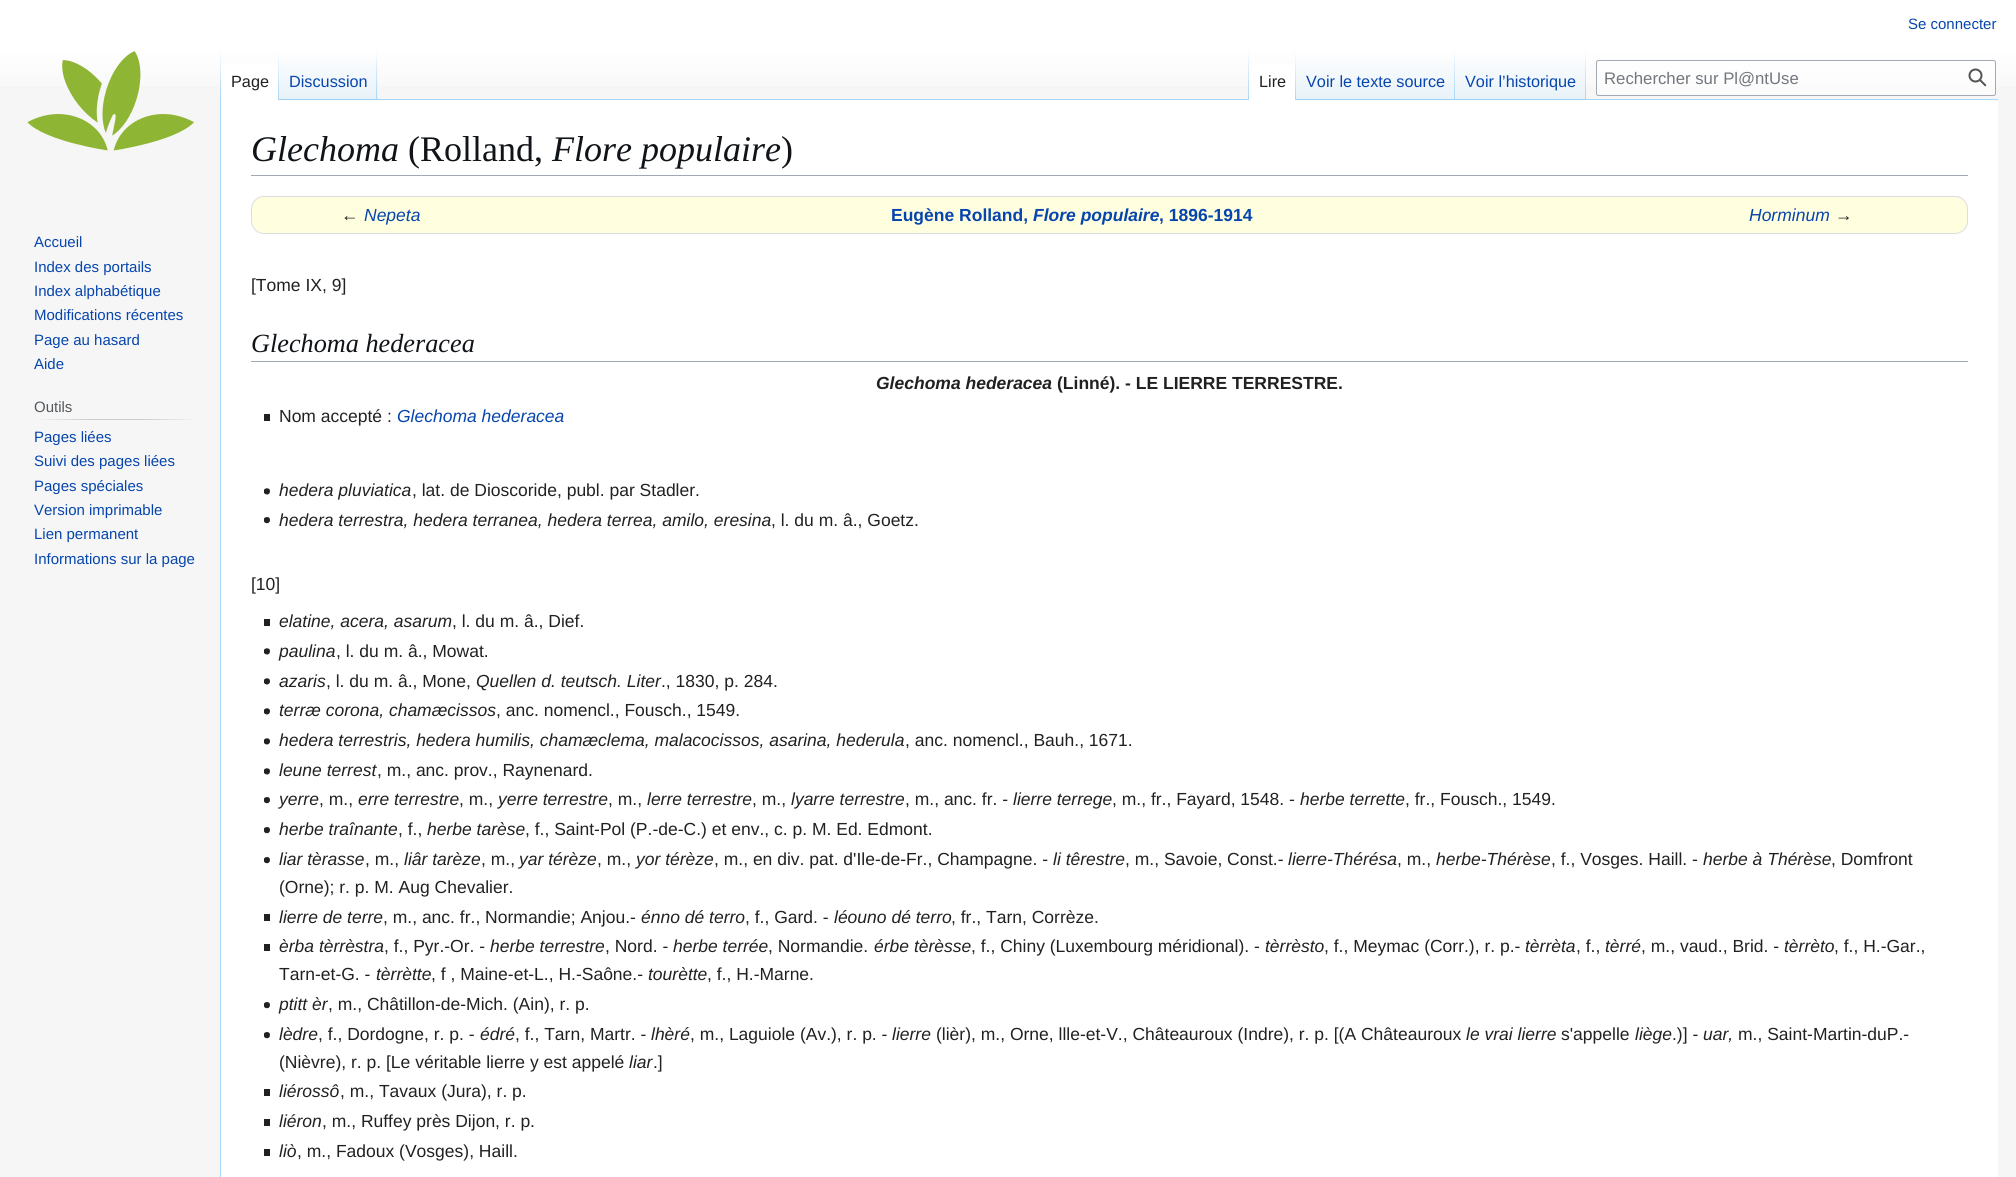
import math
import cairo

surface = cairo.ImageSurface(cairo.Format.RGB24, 2016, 1177)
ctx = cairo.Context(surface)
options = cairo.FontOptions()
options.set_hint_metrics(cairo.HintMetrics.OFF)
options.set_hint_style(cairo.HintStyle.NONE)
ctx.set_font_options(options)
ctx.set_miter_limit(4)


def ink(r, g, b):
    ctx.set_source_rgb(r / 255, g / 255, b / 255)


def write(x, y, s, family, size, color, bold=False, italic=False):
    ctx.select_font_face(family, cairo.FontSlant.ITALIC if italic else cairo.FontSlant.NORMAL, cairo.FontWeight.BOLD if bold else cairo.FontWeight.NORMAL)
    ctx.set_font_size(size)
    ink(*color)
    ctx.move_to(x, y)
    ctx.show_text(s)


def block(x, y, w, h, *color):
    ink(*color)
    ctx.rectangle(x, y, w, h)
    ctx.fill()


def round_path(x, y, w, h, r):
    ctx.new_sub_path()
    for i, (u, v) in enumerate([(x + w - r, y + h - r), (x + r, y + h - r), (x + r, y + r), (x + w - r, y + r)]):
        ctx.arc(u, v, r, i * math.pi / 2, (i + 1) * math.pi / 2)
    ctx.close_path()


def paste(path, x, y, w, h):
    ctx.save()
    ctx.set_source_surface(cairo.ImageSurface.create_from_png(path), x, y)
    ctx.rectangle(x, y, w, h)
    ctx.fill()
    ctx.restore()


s1 = dict(family="Liberation Sans", size=15, color=(6, 69, 173))
s2 = dict(family="Liberation Sans", size=16.25, color=(32, 33, 34))
s3 = dict(family="Liberation Sans", size=16.25, color=(6, 69, 173))
s4 = dict(family="Liberation Sans", size=16.75, color=(114, 119, 125))
s5 = dict(family="Liberation Sans", size=15, color=(84, 89, 93))
s6 = dict(family="Liberation Serif", size=36, color=(16, 20, 24), italic=True)
s7 = dict(family="Liberation Serif", size=36, color=(16, 20, 24))
s8 = dict(family="Liberation Sans", size=17.5, color=(32, 33, 34))
s9 = dict(family="Liberation Sans", size=17.5, color=(6, 69, 173), italic=True)
s10 = dict(family="Liberation Sans", size=17.5, color=(6, 69, 173), bold=True)
s11 = dict(family="Liberation Sans", size=17.5, color=(6, 69, 173), bold=True, italic=True)
s12 = dict(family="Liberation Serif", size=26.25, color=(16, 20, 24), italic=True)
s13 = dict(family="Liberation Sans", size=17.5, color=(32, 33, 34), bold=True, italic=True)
s14 = dict(family="Liberation Sans", size=17.5, color=(32, 33, 34), bold=True)
s15 = dict(family="Liberation Sans", size=17.5, color=(32, 33, 34), italic=True)

ink(246, 246, 246)
ctx.paint()
gradient = cairo.LinearGradient(1008, 0, 1008, 100)
gradient.add_color_stop_rgba(0.5, 1, 1, 1, 1)
gradient.add_color_stop_rgba(1, 0.965, 0.965, 0.965, 1)
ctx.set_source(gradient)
ctx.rectangle(0, 0, 2016, 86)
ctx.fill()
write(1908, 29, "Se connecter", **s1)
block(220, 99, 1, 1078, 167, 215, 249)
gradient = cairo.LinearGradient(221, 50, 221, 100)
gradient.add_color_stop_rgba(0, 0.655, 0.843, 0.976, 0)
gradient.add_color_stop_rgba(1, 0.655, 0.843, 0.976, 1)
ctx.set_source(gradient)
ctx.rectangle(220, 50, 1, 50)
ctx.fill()
block(221, 64, 57, 36, 255, 255, 255)
gradient = cairo.LinearGradient(278, 50, 278, 100)
gradient.add_color_stop_rgba(0, 1, 1, 1, 1)
gradient.add_color_stop_rgba(1, 0.655, 0.843, 0.976, 1)
ctx.set_source(gradient)
ctx.rectangle(278, 50, 1, 50)
ctx.fill()
write(231, 87, "Page", **s2)
gradient = cairo.LinearGradient(328, 100, 328, 50)
gradient.add_color_stop_rgba(0, 0.467, 0.757, 0.965, 1)
gradient.add_color_stop_rgba(0.03, 0.91, 0.949, 0.973, 1)
gradient.add_color_stop_rgba(1, 1, 1, 1, 1)
ctx.set_source(gradient)
ctx.rectangle(279, 57, 99, 43)
ctx.fill()
gradient = cairo.LinearGradient(377, 50, 377, 100)
gradient.add_color_stop_rgba(0, 0.655, 0.843, 0.976, 0)
gradient.add_color_stop_rgba(1, 0.655, 0.843, 0.976, 1)
ctx.set_source(gradient)
ctx.rectangle(376, 50, 1, 50)
ctx.fill()
write(289, 87, "Discussion", **s3)
block(378, 99, 1620, 1, 167, 215, 249)
gradient = cairo.LinearGradient(1248, 50, 1248, 100)
gradient.add_color_stop_rgba(0, 0.655, 0.843, 0.976, 0)
gradient.add_color_stop_rgba(1, 0.655, 0.843, 0.976, 1)
ctx.set_source(gradient)
ctx.rectangle(1248, 50, 1, 50)
ctx.fill()
block(1249, 64, 46, 36, 255, 255, 255)
gradient = cairo.LinearGradient(1296, 50, 1296, 100)
gradient.add_color_stop_rgba(0, 1, 1, 1, 1)
gradient.add_color_stop_rgba(1, 0.655, 0.843, 0.976, 1)
ctx.set_source(gradient)
ctx.rectangle(1295, 50, 1, 50)
ctx.fill()
write(1259, 87, "Lire", **s2)
gradient = cairo.LinearGradient(1376, 100, 1376, 50)
gradient.add_color_stop_rgba(0, 0.467, 0.757, 0.965, 1)
gradient.add_color_stop_rgba(0.03, 0.91, 0.949, 0.973, 1)
gradient.add_color_stop_rgba(1, 1, 1, 1, 1)
ctx.set_source(gradient)
ctx.rectangle(1296, 57, 159, 43)
ctx.fill()
gradient = cairo.LinearGradient(1454, 50, 1454, 100)
gradient.add_color_stop_rgba(0, 0.655, 0.843, 0.976, 0)
gradient.add_color_stop_rgba(1, 0.655, 0.843, 0.976, 1)
ctx.set_source(gradient)
ctx.rectangle(1454, 50, 1, 50)
ctx.fill()
write(1306, 87, "Voir le texte source", **s3)
gradient = cairo.LinearGradient(1521, 100, 1521, 50)
gradient.add_color_stop_rgba(0, 0.467, 0.757, 0.965, 1)
gradient.add_color_stop_rgba(0.03, 0.91, 0.949, 0.973, 1)
gradient.add_color_stop_rgba(1, 1, 1, 1, 1)
ctx.set_source(gradient)
ctx.rectangle(1455, 57, 131, 43)
ctx.fill()
gradient = cairo.LinearGradient(1586, 50, 1586, 100)
gradient.add_color_stop_rgba(0, 0.655, 0.843, 0.976, 0)
gradient.add_color_stop_rgba(1, 0.655, 0.843, 0.976, 1)
ctx.set_source(gradient)
ctx.rectangle(1585, 50, 1, 50)
ctx.fill()
write(1465, 87, "Voir l’historique", **s3)
ctx.set_source_rgba(1, 1, 1, 0.5)
round_path(1596.5, 60.5, 399, 35, 2)
ctx.fill_preserve()
ink(162, 169, 177)
ctx.set_line_width(1)
ctx.stroke()
write(1604, 84, "Rechercher sur Pl@ntUse", **s4)
paste("pic1.png", 1968, 68, 19, 19)
paste("pic2.png", 27, 51, 167, 100)
write(34, 247, "Accueil", **s1)
write(34, 272, "Index des portails", **s1)
write(34, 296, "Index alphabétique", **s1)
write(34, 320, "Modifications récentes", **s1)
write(34, 345, "Page au hasard", **s1)
write(34, 369, "Aide", **s1)
gradient = cairo.LinearGradient(34, 419, 198, 419)
gradient.add_color_stop_rgba(0, 0.965, 0.965, 0.965, 1)
gradient.add_color_stop_rgba(0.33, 0.784, 0.8, 0.82, 1)
gradient.add_color_stop_rgba(0.66, 0.784, 0.8, 0.82, 1)
gradient.add_color_stop_rgba(1, 0.965, 0.965, 0.965, 1)
ctx.set_source(gradient)
ctx.rectangle(34, 419, 164, 1)
ctx.fill()
write(34, 412, "Outils", **s5)
write(34, 442, "Pages liées", **s1)
write(34, 466, "Suivi des pages liées", **s1)
write(34, 491, "Pages spéciales", **s1)
write(34, 515, "Version imprimable", **s1)
write(34, 539, "Lien permanent", **s1)
write(34, 564, "Informations sur la page", **s1)
block(221, 100, 1777, 1077, 255, 255, 255)
block(251, 175, 1717, 1, 162, 169, 177)
write(251, 161, "Glechoma", **s6)
write(408, 161, "(Rolland,", **s7)
write(552, 161, "Flore populaire", **s6)
write(781, 161, ")", **s7)
ink(255, 255, 224)
round_path(251.5, 196.5, 1716, 37, 12.5)
ctx.fill_preserve()
ink(221, 221, 221)
ctx.stroke()
write(341, 221, "←", **s8)
write(364, 221, "Nepeta", **s9)
write(891, 221, "Eugène Rolland,", **s10)
write(1033, 221, "Flore populaire", **s11)
write(1159, 221, ", 1896-1914", **s10)
write(1749, 221, "Horminum", **s9)
write(1835, 221, "→", **s8)
write(251, 291, "[Tome IX, 9]", **s8)
block(251, 361, 1717, 1, 162, 169, 177)
write(251, 352, "Glechoma hederacea", **s12)
write(876, 389, "Glechoma hederacea", **s13)
write(1057, 389, "(Linné). - LE LIERRE TERRESTRE.", **s14)
block(264, 414, 6, 7, 32, 33, 34)
write(279, 422, "Nom accepté :", **s8)
write(397, 422, "Glechoma hederacea", **s9)
paste("pic3.png", 264, 488, 6, 7)
write(279, 496, "hedera pluviatica", **s15)
write(412, 496, ", lat. de Dioscoride, publ. par Stadler.", **s8)
paste("pic4.png", 264, 517, 6, 7)
write(279, 526, "hedera terrestra, hedera terranea, hedera terrea, amilo, eresina", **s15)
write(771, 526, ", l. du m. â., Goetz.", **s8)
write(251, 590, "[10]", **s8)
block(264, 619, 6, 7, 32, 33, 34)
write(279, 627, "elatine, acera, asarum", **s15)
write(452, 627, ", l. du m. â., Dief.", **s8)
paste("pic3.png", 264, 648, 6, 7)
write(279, 657, "paulina", **s15)
write(336, 657, ", l. du m. â., Mowat.", **s8)
paste("pic3.png", 264, 678, 6, 7)
write(279, 687, "azaris", **s15)
write(326, 687, ", l. du m. â., Mone,", **s8)
write(476, 687, "Quellen d. teutsch. Liter", **s15)
write(661, 687, "., 1830, p. 284.", **s8)
paste("pic3.png", 264, 708, 6, 7)
write(279, 716, "terræ corona, chamæcissos", **s15)
write(496, 716, ", anc. nomencl., Fousch., 1549.", **s8)
paste("pic3.png", 264, 738, 6, 7)
write(279, 746, "hedera terrestris, hedera humilis, chamæclema, malacocissos, asarina, hederula", **s15)
write(905, 746, ", anc. nomencl., Bauh., 1671.", **s8)
paste("pic5.png", 264, 768, 6, 7)
write(279, 776, "leune terrest", **s15)
write(377, 776, ", m., anc. prov., Raynenard.", **s8)
paste("pic4.png", 264, 797, 6, 7)
write(279, 805, "yerre", **s15)
write(319, 805, ", m.,", **s8)
write(358, 805, "erre terrestre", **s15)
write(459, 805, ", m.,", **s8)
write(498, 805, "yerre terrestre", **s15)
write(608, 805, ", m.,", **s8)
write(647, 805, "lerre terrestre", **s15)
write(752, 805, ", m.,", **s8)
write(791, 805, "lyarre terrestre", **s15)
write(905, 805, ", m., anc. fr. -", **s8)
write(1013, 805, "lierre terrege", **s15)
write(1112, 805, ", m., fr., Fayard, 1548. -", **s8)
write(1300, 805, "herbe terrette", **s15)
write(1405, 805, ", fr., Fousch., 1549.", **s8)
paste("pic4.png", 264, 827, 6, 7)
write(279, 835, "herbe traînante", **s15)
write(398, 835, ", f.,", **s8)
write(427, 835, "herbe tarèse", **s15)
write(525, 835, ", f., Saint-Pol (P.-de-C.) et env., c. p. M. Ed. Edmont.", **s8)
paste("pic4.png", 264, 857, 6, 7)
write(279, 865, "liar tèrasse", **s15)
write(365, 865, ", m.,", **s8)
write(404, 865, "liâr tarèze", **s15)
write(481, 865, ", m.,", **s8)
write(519, 865, "yar térèze", **s15)
write(597, 865, ", m.,", **s8)
write(636, 865, "yor térèze", **s15)
write(714, 865, ", m., en div. pat. d'Ile-de-Fr., Champagne. -", **s8)
write(1053, 865, "li têrestre", **s15)
write(1125, 865, ", m., Savoie, Const.-", **s8)
write(1288, 865, "lierre-Thérésa", **s15)
write(1397, 865, ", m.,", **s8)
write(1436, 865, "herbe-Thérèse", **s15)
write(1551, 865, ", f., Vosges. Haill. -", **s8)
write(1703, 865, "herbe à Thérèse", **s15)
write(1831, 865, ", Domfront", **s8)
write(279, 893, "(Orne); r. p. M. Aug Chevalier.", **s8)
block(264, 914, 6, 7, 32, 33, 34)
write(279, 923, "lierre de terre", **s15)
write(383, 923, ", m., anc. fr., Normandie; Anjou.-", **s8)
write(641, 923, "énno dé terro", **s15)
write(745, 923, ", f., Gard. -", **s8)
write(834, 923, "léouno dé terro", **s15)
write(951, 923, ", fr., Tarn, Corrèze.", **s8)
block(264, 944, 6, 7, 32, 33, 34)
write(279, 952, "èrba tèrrèstra", **s15)
write(384, 952, ", f., Pyr.-Or. -", **s8)
write(490, 952, "herbe terrestre", **s15)
write(605, 952, ", Nord. -", **s8)
write(673, 952, "herbe terrée", **s15)
write(768, 952, ", Normandie.", **s8)
write(874, 952, "érbe tèrèsse", **s15)
write(971, 952, ", f., Chiny (Luxembourg méridional). -", **s8)
write(1265, 952, "tèrrèsto", **s15)
write(1324, 952, ", f., Meymac (Corr.), r. p.-", **s8)
write(1525, 952, "tèrrèta", **s15)
write(1576, 952, ", f.,", **s8)
write(1605, 952, "tèrré", **s15)
write(1641, 952, ", m., vaud., Brid. -", **s8)
write(1784, 952, "tèrrèto", **s15)
write(1834, 952, ", f., H.-Gar.,", **s8)
write(279, 980, "Tarn-et-G. -", **s8)
write(376, 980, "tèrrètte", **s15)
write(431, 980, ", f , Maine-et-L., H.-Saône.-", **s8)
write(648, 980, "tourètte", **s15)
write(707, 980, ", f., H.-Marne.", **s8)
paste("pic4.png", 264, 1002, 6, 7)
write(279, 1010, "ptitt èr", **s15)
write(328, 1010, ", m., Châtillon-de-Mich. (Ain), r. p.", **s8)
paste("pic4.png", 264, 1032, 6, 7)
write(279, 1040, "lèdre", **s15)
write(318, 1040, ", f., Dordogne, r. p. -", **s8)
write(480, 1040, "édré", **s15)
write(515, 1040, ", f., Tarn, Martr. -", **s8)
write(651, 1040, "lhèré", **s15)
write(690, 1040, ", m., Laguiole (Av.), r. p. -", **s8)
write(892, 1040, "lierre", **s15)
write(936, 1040, "(lièr), m., Orne, llle-et-V., Châteauroux (Indre), r. p. [(A Châteauroux", **s8)
write(1466, 1040, "le vrai lierre", **s15)
write(1561, 1040, "s'appelle", **s8)
write(1635, 1040, "liège", **s15)
write(1672, 1040, ".)] -", **s8)
write(1703, 1040, "uar,", **s15)
write(1738, 1040, "m., Saint-Martin-duP.-", **s8)
write(279, 1068, "(Nièvre), r. p. [Le véritable lierre y est appelé", **s8)
write(629, 1068, "liar", **s15)
write(653, 1068, ".]", **s8)
block(264, 1089, 6, 7, 32, 33, 34)
write(279, 1097, "liérossô", **s15)
write(340, 1097, ", m., Tavaux (Jura), r. p.", **s8)
block(264, 1119, 6, 7, 32, 33, 34)
write(279, 1127, "liéron", **s15)
write(322, 1127, ", m., Ruffey près Dijon, r. p.", **s8)
block(264, 1149, 6, 7, 32, 33, 34)
write(279, 1157, "liò", **s15)
write(297, 1157, ", m., Fadoux (Vosges), Haill.", **s8)
surface.write_to_png("screenshot.png")
